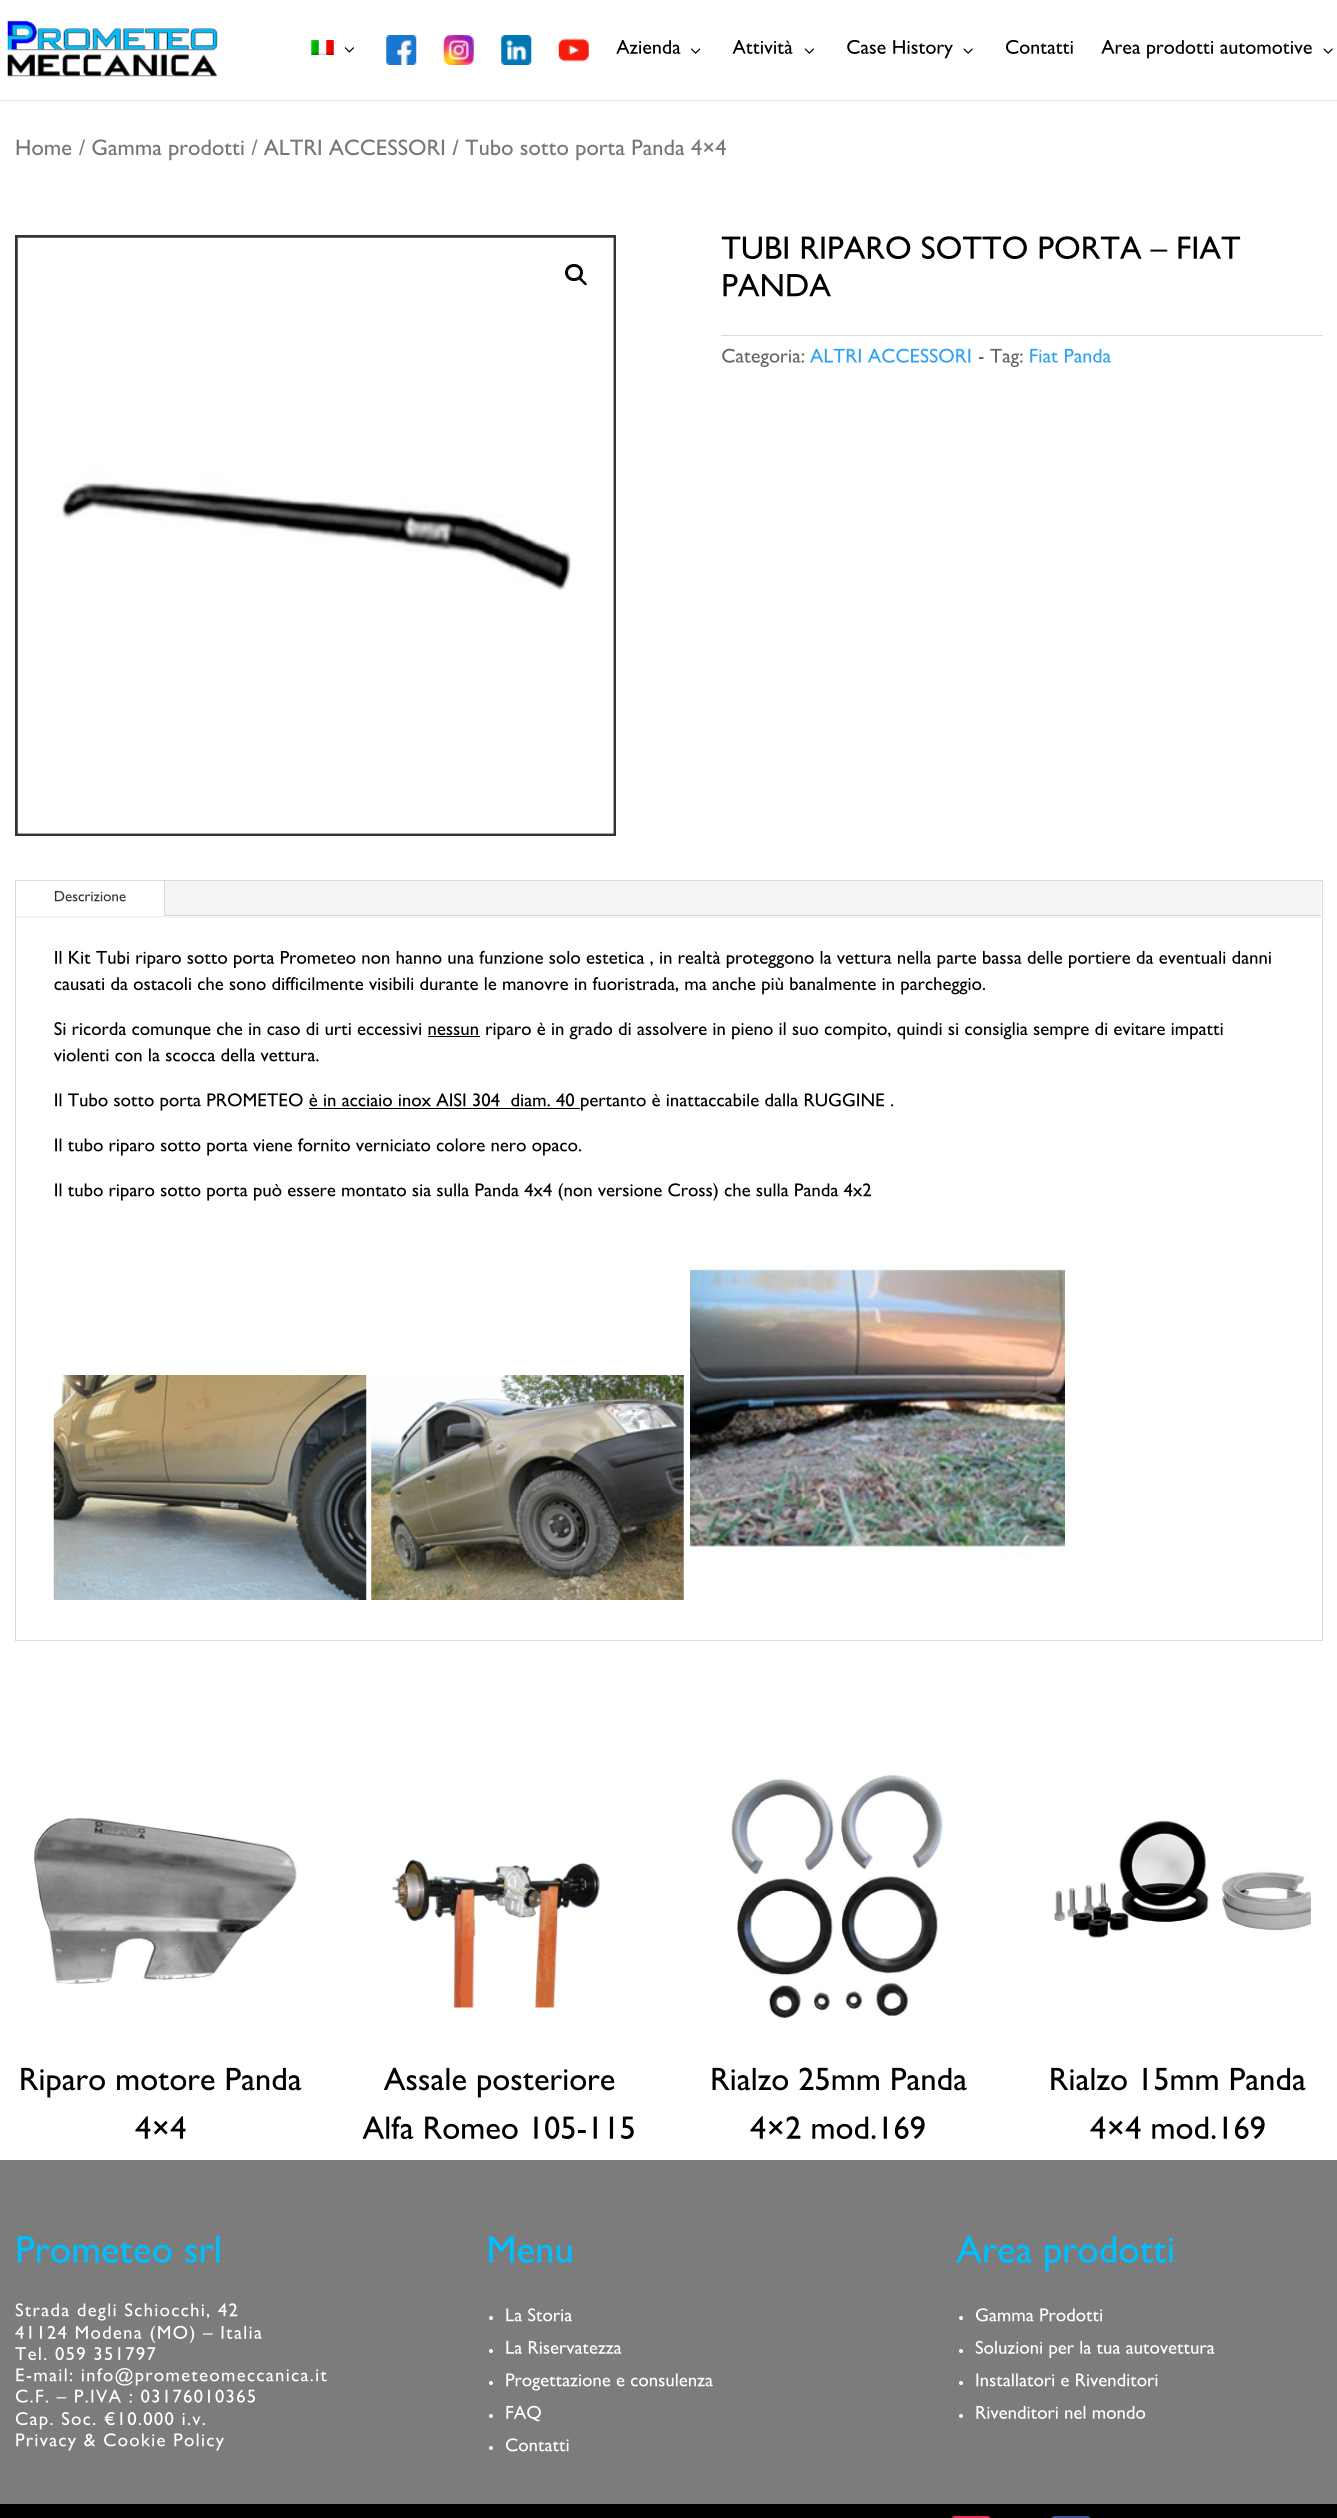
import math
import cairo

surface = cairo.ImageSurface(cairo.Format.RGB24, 1337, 2518)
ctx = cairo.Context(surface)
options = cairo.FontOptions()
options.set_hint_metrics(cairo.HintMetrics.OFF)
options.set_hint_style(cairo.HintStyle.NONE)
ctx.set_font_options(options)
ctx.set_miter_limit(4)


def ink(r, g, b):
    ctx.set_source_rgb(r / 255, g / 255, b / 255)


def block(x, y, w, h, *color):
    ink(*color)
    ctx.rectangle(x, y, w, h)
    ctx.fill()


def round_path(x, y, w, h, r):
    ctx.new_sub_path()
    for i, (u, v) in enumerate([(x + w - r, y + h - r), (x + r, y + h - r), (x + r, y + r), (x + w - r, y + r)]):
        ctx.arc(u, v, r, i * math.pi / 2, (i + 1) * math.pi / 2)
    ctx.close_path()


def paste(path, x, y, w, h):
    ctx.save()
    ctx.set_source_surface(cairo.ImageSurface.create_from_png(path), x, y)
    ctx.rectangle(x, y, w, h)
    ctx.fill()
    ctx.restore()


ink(255, 255, 255)
ctx.paint()
ink(230, 230, 230)
ctx.new_path()
ctx.move_to(0, 100)
ctx.line_to(0, 101)
ctx.line_to(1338, 101)
ctx.line_to(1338, 1)
ctx.line_to(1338, 100)
ctx.close_path()
ctx.fill()
paste("pic1.png", 7, 20, 211, 57)
paste("pic2.png", 311, 40, 23, 15)
paste("pic3.png", 344, 47, 10, 6)
paste("pic4.png", 386, 35, 31, 30)
paste("pic5.png", 443, 35, 31, 30)
paste("pic6.png", 501, 35, 31, 30)
paste("pic7.png", 558, 38, 31, 24)
paste("pic8.png", 616, 40, 65, 14)
paste("pic9.png", 691, 48, 10, 6)
paste("pic10.png", 732, 40, 61, 14)
paste("pic11.png", 804, 48, 10, 6)
paste("pic12.png", 847, 39, 106, 20)
paste("pic13.png", 963, 48, 10, 6)
paste("pic14.png", 1006, 39, 67, 15)
paste("pic15.png", 1101, 40, 211, 19)
paste("pic13.png", 1323, 48, 10, 6)
paste("pic16.png", 16, 139, 56, 17)
ink(118, 118, 118)
ctx.new_path()
ctx.move_to(79, 155)
ctx.line_to(80.5, 155)
ctx.line_to(85, 139.5)
ctx.line_to(83.5, 139.5)
ctx.close_path()
ctx.fill()
paste("pic17.png", 92, 139, 152, 22)
ctx.new_path()
ctx.move_to(251.5, 155)
ctx.line_to(253, 155)
ctx.line_to(257.5, 139.5)
ctx.line_to(256, 139.5)
ctx.close_path()
ctx.fill()
paste("pic18.png", 263, 139, 182, 17)
ctx.new_path()
ctx.move_to(452.5, 155)
ctx.line_to(454.5, 155)
ctx.line_to(458.5, 139.5)
ctx.line_to(457, 139.5)
ctx.close_path()
ctx.fill()
paste("pic19.png", 465, 139, 261, 22)
ctx.rectangle(16.5, 236.5, 598, 598)
ink(51, 51, 51)
ctx.set_line_width(3)
ctx.stroke()
paste("pic20.png", 17, 237, 597, 597)
round_path(566.5, 265.5, 15, 14, 7)
ink(0, 0, 0)
ctx.stroke()
ctx.new_path()
ctx.move_to(579, 277.5)
ctx.curve_to(580.5, 276.5, 583, 279.5, 583.5, 280.5)
ctx.curve_to(584.5, 281, 587.5, 283.5, 586.5, 285)
ctx.curve_to(585, 286, 582.5, 283, 582, 282)
ctx.curve_to(581, 281.5, 578, 279, 579, 277.5)
ctx.close_path()
ctx.fill()
paste("pic21.png", 721, 236, 520, 23)
paste("pic22.png", 723, 273, 108, 24)
block(721, 335, 602, 1, 218, 218, 218)
paste("pic23.png", 722, 348, 83, 20)
paste("pic24.png", 810, 348, 161, 15)
ink(102, 102, 102)
ctx.new_path()
ctx.move_to(983.5, 357)
ctx.line_to(979, 357)
ctx.line_to(979, 359)
ctx.line_to(983.5, 359)
ctx.close_path()
ctx.fill()
paste("pic25.png", 990, 348, 33, 20)
paste("pic26.png", 1030, 348, 81, 15)
ctx.rectangle(15.5, 880.5, 1307, 760)
ink(217, 217, 217)
ctx.set_line_width(1)
ctx.stroke()
block(16, 881, 1305, 37, 244, 244, 244)
block(16, 881, 148, 35, 255, 255, 255)
block(164, 881, 1, 35, 217, 217, 217)
paste("pic27.png", 54, 891, 72, 11)
block(165, 915, 1156, 1, 217, 217, 217)
paste("pic28.png", 55, 950, 1216, 19)
paste("pic29.png", 54, 977, 931, 18)
paste("pic30.png", 54, 1022, 368, 18)
paste("pic31.png", 428, 1026, 50, 10)
paste("pic32.png", 486, 1022, 737, 18)
block(428, 1036, 52, 1, 0, 0, 0)
paste("pic33.png", 53, 1048, 266, 14)
paste("pic34.png", 55, 1093, 248, 18)
paste("pic35.png", 309, 1093, 266, 14)
paste("pic36.png", 581, 1093, 313, 18)
block(309, 1108, 271, 1, 0, 0, 0)
paste("pic37.png", 55, 1138, 527, 18)
paste("pic38.png", 55, 1183, 817, 18)
paste("pic39.png", 53, 1375, 314, 225)
paste("pic40.png", 371, 1375, 313, 225)
paste("pic41.png", 690, 1265, 375, 290)
paste("pic42.png", 33, 1817, 264, 167)
paste("pic43.png", 21, 2067, 281, 31)
paste("pic44.png", 135, 2116, 51, 23)
paste("pic45.png", 391, 1859, 209, 149)
paste("pic46.png", 383, 2067, 232, 31)
paste("pic47.png", 362, 2116, 272, 23)
paste("pic48.png", 731, 1774, 213, 245)
paste("pic49.png", 712, 2067, 255, 24)
paste("pic50.png", 750, 2116, 175, 23)
paste("pic51.png", 1053, 1820, 258, 118)
paste("pic52.png", 1051, 2067, 255, 24)
paste("pic53.png", 1090, 2116, 175, 23)
block(0, 2160, 1337, 344, 124, 124, 124)
paste("pic54.png", 17, 2236, 203, 27)
paste("pic55.png", 15, 2303, 223, 18)
paste("pic56.png", 15, 2325, 247, 19)
paste("pic57.png", 15, 2347, 141, 14)
paste("pic58.png", 16, 2368, 311, 18)
paste("pic59.png", 15, 2389, 240, 14)
paste("pic60.png", 15, 2412, 190, 18)
paste("pic61.png", 16, 2433, 208, 18)
paste("pic62.png", 489, 2236, 83, 27)
ink(255, 255, 255)
ctx.arc(491, 2318, 2, 0, 2 * math.pi)
ctx.fill()
paste("pic63.png", 506, 2308, 66, 14)
ctx.arc(491, 2351, 2, 0, 2 * math.pi)
ctx.fill()
paste("pic64.png", 506, 2340, 116, 14)
ctx.arc(491, 2383, 2, 0, 2 * math.pi)
ctx.fill()
paste("pic65.png", 506, 2373, 207, 18)
ctx.arc(491, 2416, 2, 0, 2 * math.pi)
ctx.fill()
paste("pic66.png", 506, 2405, 35, 17)
ctx.arc(491, 2448, 2, 0, 2 * math.pi)
ctx.fill()
paste("pic67.png", 505, 2438, 64, 14)
paste("pic68.png", 956, 2235, 217, 37)
ctx.arc(961, 2318, 2, 0, 2 * math.pi)
ctx.fill()
paste("pic69.png", 976, 2308, 127, 14)
ctx.arc(961, 2351, 2, 0, 2 * math.pi)
ctx.fill()
paste("pic70.png", 975, 2340, 240, 19)
ctx.arc(961, 2383, 2, 0, 2 * math.pi)
ctx.fill()
paste("pic71.png", 976, 2373, 182, 14)
ctx.arc(961, 2416, 2, 0, 2 * math.pi)
ctx.fill()
paste("pic72.png", 976, 2405, 170, 14)
block(0, 2504, 1337, 14, 0, 0, 0)
ink(234, 44, 89)
round_path(951, 2516, 40, 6, 4)
ctx.fill()
ink(59, 89, 152)
round_path(1051, 2516, 40, 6, 4)
ctx.fill()
surface.write_to_png("screenshot.png")
